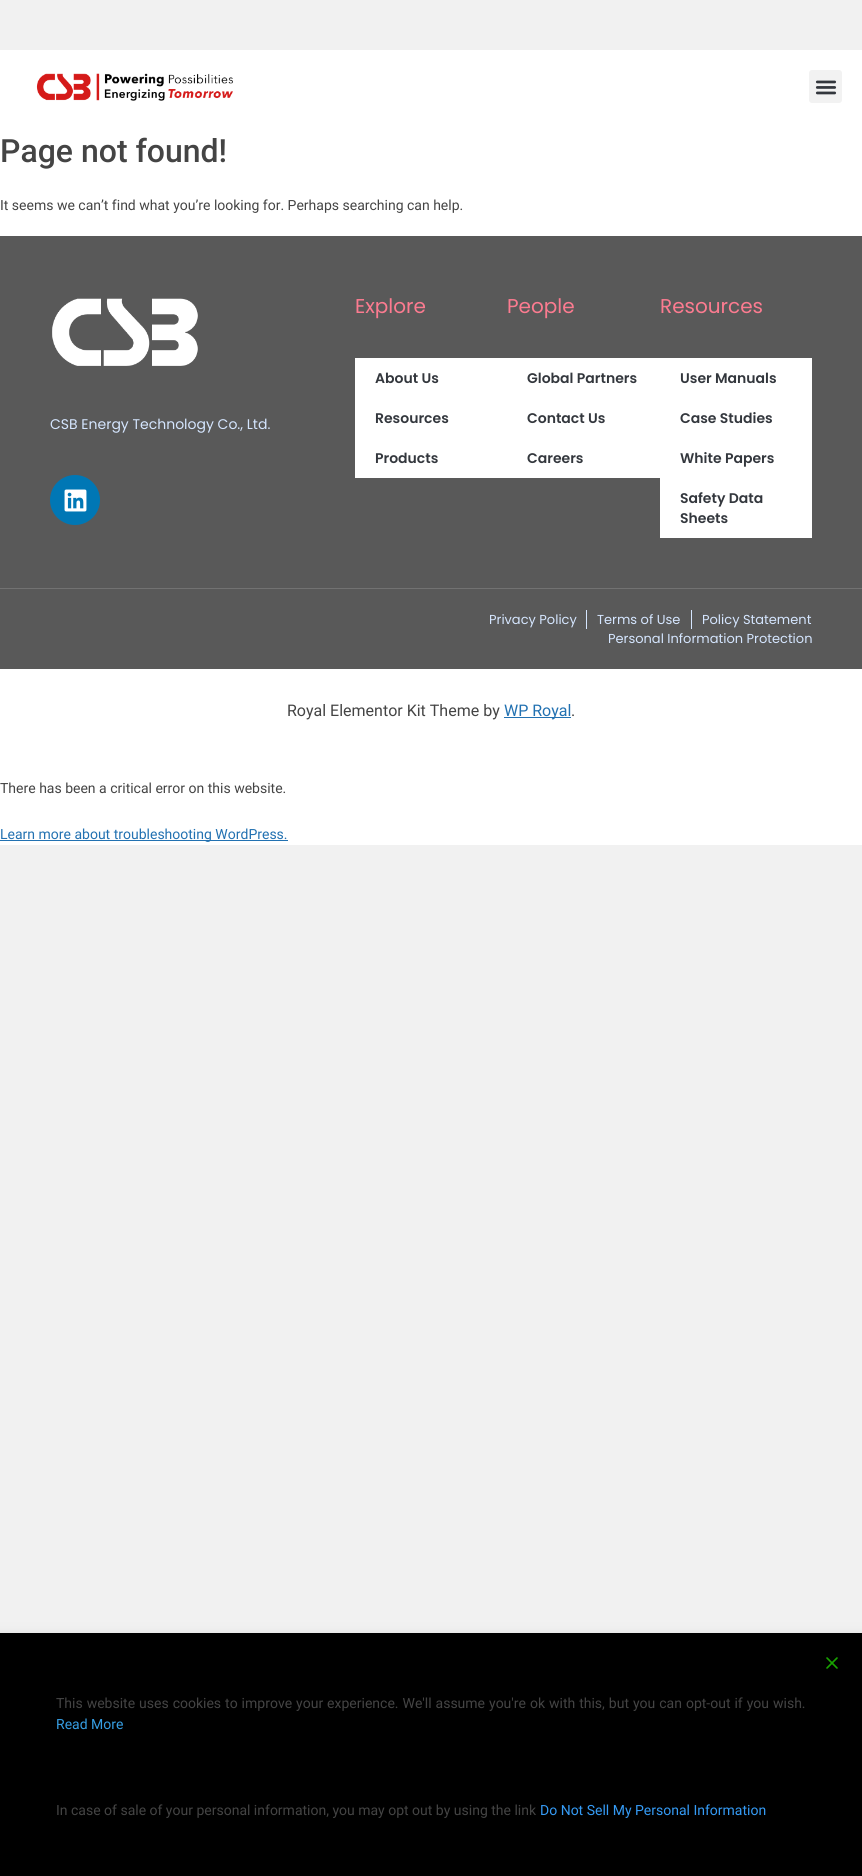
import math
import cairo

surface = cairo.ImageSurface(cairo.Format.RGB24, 862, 1876)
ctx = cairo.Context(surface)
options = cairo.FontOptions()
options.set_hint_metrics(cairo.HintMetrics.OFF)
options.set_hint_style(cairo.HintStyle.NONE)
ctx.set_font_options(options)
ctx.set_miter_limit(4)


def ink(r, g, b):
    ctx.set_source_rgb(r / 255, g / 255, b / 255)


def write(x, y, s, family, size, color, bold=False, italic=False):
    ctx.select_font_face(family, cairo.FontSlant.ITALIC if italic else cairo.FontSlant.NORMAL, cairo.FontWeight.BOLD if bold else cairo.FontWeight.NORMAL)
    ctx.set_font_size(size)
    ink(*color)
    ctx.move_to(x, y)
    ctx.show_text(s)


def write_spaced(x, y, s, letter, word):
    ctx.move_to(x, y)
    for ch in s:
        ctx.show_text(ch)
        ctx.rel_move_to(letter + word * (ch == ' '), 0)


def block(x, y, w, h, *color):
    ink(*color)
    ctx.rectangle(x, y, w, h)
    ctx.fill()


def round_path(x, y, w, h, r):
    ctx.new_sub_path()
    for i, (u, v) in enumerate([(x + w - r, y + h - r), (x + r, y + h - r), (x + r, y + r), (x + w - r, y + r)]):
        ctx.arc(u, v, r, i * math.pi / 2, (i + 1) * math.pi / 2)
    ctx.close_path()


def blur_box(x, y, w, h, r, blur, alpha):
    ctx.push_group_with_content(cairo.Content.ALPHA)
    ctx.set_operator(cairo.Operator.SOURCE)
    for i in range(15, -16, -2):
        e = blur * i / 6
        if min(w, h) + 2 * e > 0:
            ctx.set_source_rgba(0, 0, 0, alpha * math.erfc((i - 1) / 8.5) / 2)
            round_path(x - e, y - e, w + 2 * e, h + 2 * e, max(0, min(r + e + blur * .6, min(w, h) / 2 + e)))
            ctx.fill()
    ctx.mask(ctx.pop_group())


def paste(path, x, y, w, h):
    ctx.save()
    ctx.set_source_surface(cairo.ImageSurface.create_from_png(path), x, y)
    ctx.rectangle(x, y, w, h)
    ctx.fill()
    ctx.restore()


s1 = dict(family="Roboto Medium", size=32, color=(68, 68, 68))
s2 = dict(family="Roboto", size=14, color=(68, 68, 68))
s3 = dict(family="Poppins", size=14, color=(213, 230, 255))
s4 = dict(family="Poppins", size=20, color=(252, 123, 144))
s5 = dict(family="Poppins SemiBold", size=14, color=(51, 55, 61))
s6 = dict(family="Poppins", size=13, color=(213, 230, 255))
s7 = dict(family="Roboto", size=16, color=(68, 68, 68))
s8 = dict(family="Roboto", size=16, color=(34, 113, 177))
s9 = dict(family="Roboto", size=14, color=(34, 113, 177))
s10 = dict(family="Roboto", size=14, color=(54, 158, 227))
s11 = dict(family="Roboto", size=14, color=(53, 155, 245))

ink(241, 241, 241)
ctx.paint()
block(0, 50, 862, 795, 255, 255, 255)
paste("pic1.png", 36, 73, 197, 28)
ink(242, 242, 242)
round_path(809, 70, 33, 33, 3)
ctx.fill()
paste("pic2.png", 815, 80, 22, 15)
write(0, 162, "Page not found!", **s1)
write(0, 210, "It seems we can’t find what you’re looking for. Perhaps searching can help.", **s2)
block(0, 236, 862, 433, 89, 89, 89)
block(0, 588, 862, 1, 114, 114, 114)
paste("pic3.png", 52, 298, 146, 68)
write(50, 429, "CSB Energy Technology Co., Ltd.", **s3)
ink(0, 119, 181)
ctx.new_path()
ctx.arc(75, 500, 25, 0, 2 * math.pi)
ctx.fill()
paste("pic4.png", 64, 489, 23, 23)
write(355, 313, "Explore", **s4)
block(355, 358, 305, 120, 255, 255, 255)
write(375, 383, "About Us", **s5)
write(375, 423, "Resources", **s5)
write(375, 463, "Products", **s5)
write(507, 313, "People", **s4)
write(527, 383, "Global Partners", **s5)
write(527, 423, "Contact Us", **s5)
write(527, 463, "Careers", **s5)
write(660, 313, "Resources", **s4)
block(660, 358, 152, 180, 255, 255, 255)
write(680, 383, "User Manuals", **s5)
write(680, 423, "Case Studies", **s5)
write(680, 463, "White Papers", **s5)
write(680, 503, "Safety Data", **s5)
write(680, 523, "Sheets", **s5)
write(489, 624, "Privacy Policy", **s6)
block(586, 610, 1, 19, 213, 230, 255)
write(597, 624, "Terms of Use", **s6)
block(691, 610, 1, 19, 213, 230, 255)
write(702, 624, "Policy Statement", **s6)
write(608, 643, "Personal Information Protection", **s6)
write(287, 716, "Royal Elementor Kit Theme by", **s7)
block(504, 717, 67, 1, 34, 113, 177)
write(504, 716, "WP Royal", **s8)
write(571, 716, ".", **s7)
write(0, 793, "There has been a critical error on this website.", **s2)
block(0, 840, 288, 1, 34, 113, 177)
write(0, 839, "Learn more about troubleshooting WordPress.", **s9)
ink(221, 221, 221)
blur_box(-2, 1634, 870, 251, 0, 5.5, 1)
block(0, 1633, 862, 243, 0, 0, 0)
paste("pic5.png", 826, 1657, 12, 12)
ink(68, 68, 68)
write_spaced(56, 1708, "This website uses cookies to improve your experience. We'll assume you're ok with this, but you can opt-out if you wish.", 0, 0.5)
write(56, 1729, "Read More", **s10)
write(56, 1815, "In case of sale of your personal information, you may opt out by using the link", **s2)
write(540, 1815, "Do Not Sell My Personal Information", **s11)
surface.write_to_png("screenshot.png")
